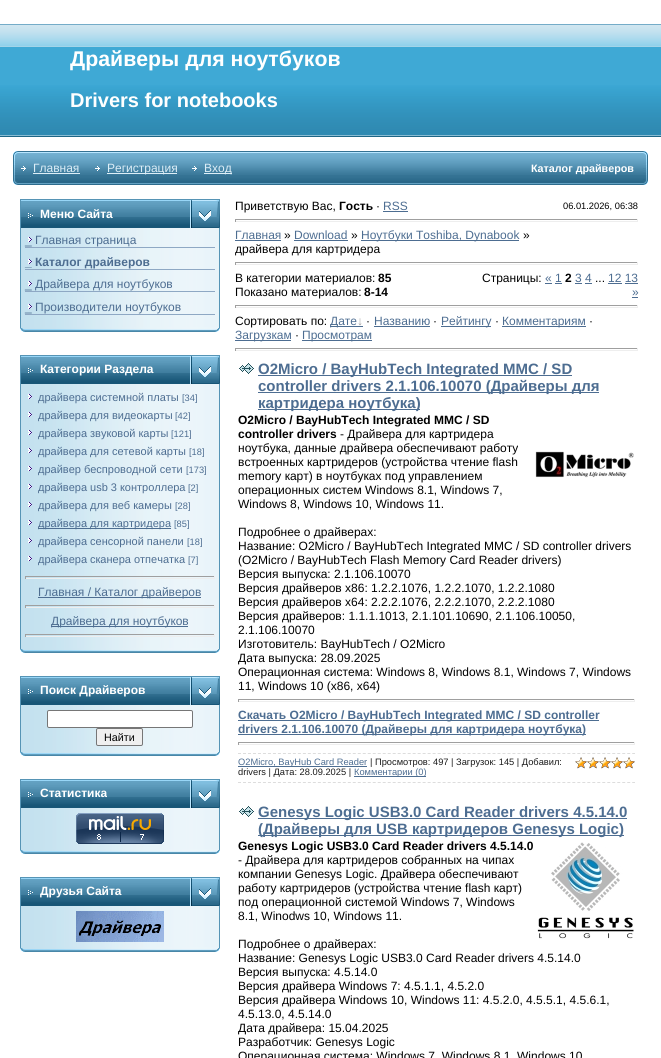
import math
import cairo

surface = cairo.ImageSurface(cairo.Format.RGB24, 661, 1058)
ctx = cairo.Context(surface)
options = cairo.FontOptions()
options.set_hint_metrics(cairo.HintMetrics.OFF)
options.set_hint_style(cairo.HintStyle.NONE)
ctx.set_font_options(options)
ctx.set_miter_limit(4)


def ink(r, g, b):
    ctx.set_source_rgb(r / 255, g / 255, b / 255)


def write(x, y, s, family, size, color, bold=False, italic=False):
    ctx.select_font_face(family, cairo.FontSlant.ITALIC if italic else cairo.FontSlant.NORMAL, cairo.FontWeight.BOLD if bold else cairo.FontWeight.NORMAL)
    ctx.set_font_size(size)
    ink(*color)
    ctx.move_to(x, y)
    ctx.show_text(s)


def block(x, y, w, h, *color):
    ink(*color)
    ctx.rectangle(x, y, w, h)
    ctx.fill()


def round_path(x, y, w, h, r):
    ctx.new_sub_path()
    for i, (u, v) in enumerate([(x + w - r, y + h - r), (x + r, y + h - r), (x + r, y + r), (x + w - r, y + r)]):
        ctx.arc(u, v, r, i * math.pi / 2, (i + 1) * math.pi / 2)
    ctx.close_path()


def paste(path, x, y, w, h):
    ctx.save()
    ctx.set_source_surface(cairo.ImageSurface.create_from_png(path), x, y)
    ctx.rectangle(x, y, w, h)
    ctx.fill()
    ctx.restore()


s1 = dict(family="Liberation Sans", size=21.3, color=(255, 255, 255), bold=True)
s2 = dict(family="Liberation Sans", size=20, color=(255, 255, 255), bold=True)
s3 = dict(family="Liberation Sans", size=12, color=(221, 238, 247))
s4 = dict(family="Liberation Sans", size=10.75, color=(255, 255, 255), bold=True)
s5 = dict(family="Liberation Sans", size=12, color=(255, 255, 255), bold=True)
s6 = dict(family="Liberation Sans", size=12, color=(77, 109, 145))
s7 = dict(family="Liberation Sans", size=12, color=(77, 109, 145), bold=True)
s8 = dict(family="Liberation Sans", size=11, color=(77, 109, 145))
s9 = dict(family="Liberation Sans", size=9.3, color=(77, 109, 145))
s10 = dict(family="Liberation Sans", size=10.75, color=(0, 0, 0))
s11 = dict(family="Liberation Sans", size=12, color=(0, 0, 0))
s12 = dict(family="Liberation Sans", size=12, color=(0, 0, 0), bold=True)
s13 = dict(family="Liberation Sans", size=9.3, color=(0, 0, 0))
s14 = dict(family="Liberation Sans", size=12, color=(160, 160, 160))
s15 = dict(family="Liberation Sans", size=15, color=(77, 109, 145), bold=True)
s16 = dict(family="Liberation Sans", size=9.3, color=(26, 26, 26))

ink(255, 255, 255)
ctx.paint()
paste("pic1.png", 0, 24, 661, 113)
write(70, 66, "Драйверы для ноутбуков", **s1)
write(70, 107, "Drivers for notebooks", **s2)
paste("pic2.png", 13, 151, 5, 34)
paste("pic3.png", 18, 151, 437, 34)
paste("pic4.png", 21, 166, 5, 5)
write(33, 172, "Главная", **s3)
block(33, 173, 47, 1, 221, 238, 247)
paste("pic4.png", 95, 166, 5, 5)
block(107, 173, 70, 1, 221, 238, 247)
write(107, 172, "Регистрация", **s3)
paste("pic4.png", 192, 166, 5, 5)
block(204, 173, 28, 1, 221, 238, 247)
write(204, 172, "Вход", **s3)
paste("pic5.png", 455, 151, 188, 34)
write(531, 172, "Каталог драйверов", **s4)
paste("pic6.png", 643, 151, 5, 34)
paste("pic7.png", 21, 199, 169, 29)
block(20, 199, 1, 29, 86, 148, 181)
paste("pic8.png", 28, 213, 5, 5)
write(40, 218, "Меню Сайта", **s5)
paste("pic9.png", 190, 199, 30, 1)
paste("pic10.png", 190, 200, 30, 28)
paste("pic11.png", 20, 228, 200, 99)
paste("pic12.png", 28, 237, 4, 5)
block(25, 247, 190, 1, 142, 168, 196)
write(25, 244, "_ Главная страница", **s6)
paste("pic12.png", 28, 259, 4, 5)
block(25, 269, 190, 1, 142, 168, 196)
write(25, 266, "_ Каталог драйверов", **s7)
paste("pic12.png", 28, 281, 4, 5)
block(25, 291, 190, 1, 142, 168, 196)
write(25, 288, "_ Драйвера для ноутбуков", **s6)
paste("pic12.png", 28, 304, 4, 5)
block(25, 314, 190, 1, 142, 168, 196)
write(25, 311, "_ Производители ноутбуков", **s6)
paste("pic13.png", 20, 327, 200, 5)
paste("pic7.png", 21, 355, 169, 29)
block(20, 355, 1, 29, 86, 148, 181)
paste("pic14.png", 28, 368, 5, 5)
write(40, 373, "Категории Раздела", **s5)
paste("pic9.png", 190, 355, 30, 1)
paste("pic10.png", 190, 356, 30, 28)
paste("pic15.png", 20, 384, 200, 264)
paste("pic12.png", 28, 394, 4, 5)
write(38, 401, "драйвера системной платы", **s8)
write(182, 401, "[34]", **s9)
paste("pic12.png", 28, 412, 4, 5)
write(38, 419, "драйвера для видеокарты", **s8)
write(175, 419, "[42]", **s9)
paste("pic12.png", 28, 430, 4, 5)
write(38, 437, "драйвера звуковой карты", **s8)
write(171, 437, "[121]", **s9)
paste("pic12.png", 28, 448, 4, 5)
write(38, 455, "драйвера для сетевой карты", **s8)
write(189, 455, "[18]", **s9)
paste("pic12.png", 28, 466, 4, 5)
write(38, 473, "драйвер беспроводной сети", **s8)
write(186, 473, "[173]", **s9)
paste("pic12.png", 28, 484, 4, 5)
write(38, 491, "драйвера usb 3 контроллера", **s8)
write(188, 491, "[2]", **s9)
paste("pic12.png", 28, 502, 4, 5)
write(38, 509, "драйвера для веб камеры", **s8)
write(175, 509, "[28]", **s9)
paste("pic12.png", 28, 520, 4, 5)
block(38, 528, 133, 1, 77, 109, 145)
write(38, 527, "драйвера для картридера", **s8)
write(174, 527, "[85]", **s9)
paste("pic12.png", 28, 538, 4, 5)
write(38, 545, "драйвера сенсорной панели", **s8)
write(187, 545, "[18]", **s9)
paste("pic12.png", 28, 556, 4, 5)
write(38, 563, "драйвера сканера отпечатка", **s8)
write(188, 563, "[7]", **s9)
block(25, 576, 190, 1, 159, 159, 159)
block(214, 576, 1, 3, 238, 238, 238)
block(25, 578, 190, 1, 238, 238, 238)
block(25, 576, 1, 3, 159, 159, 159)
block(38, 597, 163, 1, 77, 109, 145)
write(38, 596, "Главная / Каталог драйверов", **s6)
block(25, 605, 190, 1, 159, 159, 159)
block(214, 605, 1, 3, 238, 238, 238)
block(25, 607, 190, 1, 238, 238, 238)
block(25, 605, 1, 3, 159, 159, 159)
block(51, 626, 137, 1, 77, 109, 145)
write(51, 625, "Драйвера для ноутбуков", **s6)
block(25, 634, 190, 1, 159, 159, 159)
block(214, 634, 1, 3, 238, 238, 238)
block(25, 636, 190, 1, 238, 238, 238)
block(25, 634, 1, 3, 159, 159, 159)
paste("pic13.png", 20, 648, 200, 5)
paste("pic7.png", 21, 676, 169, 29)
block(20, 676, 1, 29, 86, 148, 181)
paste("pic14.png", 28, 689, 5, 5)
write(40, 694, "Поиск Драйверов", **s5)
paste("pic9.png", 190, 676, 30, 1)
paste("pic10.png", 190, 677, 30, 28)
paste("pic16.png", 20, 705, 200, 46)
round_path(47.5, 710.5, 145, 17, 1.5)
ctx.fill_preserve()
ink(118, 118, 118)
ctx.set_line_width(1)
ctx.stroke()
ink(239, 239, 239)
round_path(96.5, 728.5, 46, 17, 1.5)
ctx.fill_preserve()
ink(118, 118, 118)
ctx.stroke()
write(104, 741, "Найти", **s10)
paste("pic13.png", 20, 751, 200, 5)
paste("pic7.png", 21, 779, 169, 29)
block(20, 779, 1, 29, 86, 148, 181)
paste("pic14.png", 28, 792, 5, 5)
write(40, 797, "Статистика", **s5)
paste("pic9.png", 190, 779, 30, 1)
paste("pic10.png", 190, 780, 30, 28)
paste("pic17.png", 20, 808, 200, 41)
paste("pic18.png", 76, 813, 88, 31)
paste("pic13.png", 20, 849, 200, 5)
paste("pic7.png", 21, 877, 169, 29)
block(20, 877, 1, 29, 86, 148, 181)
paste("pic14.png", 28, 890, 5, 5)
write(40, 895, "Друзья Сайта", **s5)
paste("pic9.png", 190, 877, 30, 1)
paste("pic10.png", 190, 878, 30, 28)
paste("pic17.png", 20, 906, 200, 41)
paste("pic19.png", 76, 911, 88, 31)
paste("pic13.png", 20, 947, 200, 5)
write(235, 210, "Приветствую Вас,", **s11)
write(339, 210, "Гость", **s12)
write(376, 210, "·", **s11)
write(383, 210, "RSS", **s6)
block(383, 211, 25, 1, 77, 109, 145)
write(563, 209, "06.01.2026, 06:38", **s13)
block(235, 219, 403, 1, 159, 159, 159)
block(637, 219, 1, 3, 238, 238, 238)
block(235, 221, 403, 1, 238, 238, 238)
block(235, 219, 1, 3, 159, 159, 159)
write(235, 239, "Главная", **s6)
block(235, 240, 46, 1, 77, 109, 145)
write(284, 239, "»", **s11)
write(294, 239, "Download", **s6)
block(294, 240, 54, 1, 77, 109, 145)
write(351, 239, "»", **s11)
block(361, 240, 158, 1, 77, 109, 145)
write(361, 239, "Ноутбуки Toshiba, Dynabook", **s6)
write(523, 239, "»", **s11)
write(235, 253, "драйвера для картридера", **s11)
block(235, 262, 403, 1, 159, 159, 159)
block(637, 262, 1, 3, 238, 238, 238)
block(235, 264, 403, 1, 238, 238, 238)
block(235, 262, 1, 3, 159, 159, 159)
write(235, 282, "В категории материалов:", **s11)
write(378, 282, "85", **s12)
write(235, 296, "Показано материалов:", **s11)
write(364, 296, "8-14", **s12)
write(482, 282, "Страницы:", **s11)
write(545, 282, "« 1", **s6)
block(545, 283, 7, 1, 77, 109, 145)
block(555, 283, 7, 1, 77, 109, 145)
write(565, 282, "2", **s12)
write(575, 282, "3 4", **s6)
block(575, 283, 7, 1, 77, 109, 145)
write(595, 282, "...", **s11)
block(585, 283, 7, 1, 77, 109, 145)
block(608, 283, 14, 1, 77, 109, 145)
write(608, 282, "12 13", **s6)
block(625, 283, 13, 1, 77, 109, 145)
write(632, 296, "»", **s6)
block(632, 297, 6, 1, 77, 109, 145)
block(235, 305, 403, 1, 159, 159, 159)
block(637, 305, 1, 3, 238, 238, 238)
block(235, 307, 403, 1, 238, 238, 238)
block(235, 305, 1, 3, 159, 159, 159)
write(235, 325, "Сортировать по:", **s11)
block(330, 326, 33, 1, 77, 109, 145)
write(330, 325, "Дате", **s6)
write(357, 325, "↓", **s14)
write(366, 325, "·", **s11)
write(374, 325, "Названию", **s6)
block(374, 326, 56, 1, 77, 109, 145)
write(433, 325, "·", **s11)
block(441, 326, 50, 1, 77, 109, 145)
write(441, 325, "Рейтингу", **s6)
write(495, 325, "·", **s11)
block(502, 326, 84, 1, 77, 109, 145)
write(502, 325, "Комментариям", **s6)
write(589, 325, "·", **s11)
block(235, 340, 56, 1, 77, 109, 145)
write(235, 339, "Загрузкам", **s6)
write(295, 339, "·", **s11)
block(302, 340, 70, 1, 77, 109, 145)
write(302, 339, "Просмотрам", **s6)
block(235, 348, 403, 1, 159, 159, 159)
block(637, 348, 1, 3, 238, 238, 238)
block(235, 350, 403, 1, 238, 238, 238)
block(235, 348, 1, 3, 159, 159, 159)
paste("pic20.png", 239, 363, 15, 11)
block(258, 375, 314, 1, 77, 109, 145)
write(258, 374, "O2Micro / BayHubTech Integrated MMC / SD", **s15)
block(258, 392, 341, 1, 77, 109, 145)
write(258, 391, "controller drivers 2.1.106.10070 (Драйверы для", **s15)
block(258, 409, 162, 1, 77, 109, 145)
write(258, 408, "картридера ноутбука)", **s15)
write(238, 424, "O2Micro / BayHubTech Integrated MMC / SD", **s12)
write(238, 438, "controller drivers", **s12)
write(340, 438, "- Драйвера для картридера", **s11)
write(238, 452, "ноутбука, данные драйвера обеспечивают работу", **s11)
write(238, 466, "встроенных картридеров (устройства чтение flash", **s11)
paste("pic21.png", 535, 451, 99, 27)
write(238, 480, "memory карт) в ноутбуках под управлением", **s11)
write(238, 494, "операционных систем Windows 8.1, Windows 7,", **s11)
write(238, 508, "Windows 8, Windows 10, Windows 11.", **s11)
write(238, 536, "Подробнее о драйверах:", **s11)
write(238, 550, "Название: O2Micro / BayHubTech Integrated MMC / SD controller drivers", **s11)
write(238, 564, "(O2Micro / BayHubTech Flash Memory Card Reader drivers)", **s11)
write(238, 578, "Версия выпуска: 2.1.106.10070", **s11)
write(238, 592, "Версия драйверов x86: 1.2.2.1076, 1.2.2.1070, 1.2.2.1080", **s11)
write(238, 606, "Версия драйверов x64: 2.2.2.1076, 2.2.2.1070, 2.2.2.1080", **s11)
write(238, 620, "Версия драйверов: 1.1.1.1013, 2.1.101.10690, 2.1.106.10050,", **s11)
write(238, 634, "2.1.106.10070", **s11)
write(238, 648, "Изготовитель: BayHubTech / O2Micro", **s11)
write(238, 662, "Дата выпуска: 28.09.2025", **s11)
write(238, 676, "Операционная система: Windows 8, Windows 8.1, Windows 7, Windows", **s11)
write(238, 690, "11, Windows 10 (x86, x64)", **s11)
block(238, 699, 397, 1, 159, 159, 159)
block(634, 699, 1, 3, 238, 238, 238)
block(238, 701, 397, 1, 238, 238, 238)
block(238, 699, 1, 3, 159, 159, 159)
block(238, 720, 361, 1, 77, 109, 145)
write(238, 719, "Скачать O2Micro / BayHubTech Integrated MMC / SD controller", **s7)
block(238, 734, 348, 1, 77, 109, 145)
write(238, 733, "drivers 2.1.106.10070 (Драйверы для картридера ноутбука)", **s7)
block(238, 742, 397, 1, 159, 159, 159)
block(634, 742, 1, 3, 238, 238, 238)
block(238, 744, 397, 1, 238, 238, 238)
block(238, 742, 1, 3, 159, 159, 159)
ctx.new_path()
ctx.move_to(238, 753.5)
ctx.line_to(635, 753.5)
ink(221, 221, 221)
ctx.set_dash([3, 1.99])
ctx.stroke()
ctx.new_path()
ctx.move_to(238, 782.5)
ctx.line_to(635, 782.5)
ctx.stroke()
block(238, 766, 129, 1, 77, 109, 145)
write(238, 765, "O2Micro, BayHub Card Reader", **s9)
write(370, 765, "| Просмотров: 497 | Загрузок: 145 | Добавил:", **s16)
paste("pic22.png", 575, 757, 60, 12)
paste("pic23.png", 575, 757, 60, 12)
write(238, 775, "drivers | Дата: 28.09.2025 |", **s16)
block(354, 776, 72, 1, 77, 109, 145)
write(354, 775, "Комментарии (0)", **s9)
paste("pic20.png", 239, 806, 15, 11)
block(258, 818, 369, 1, 77, 109, 145)
write(258, 817, "Genesys Logic USB3.0 Card Reader drivers 4.5.14.0", **s15)
block(258, 835, 366, 1, 77, 109, 145)
write(258, 834, "(Драйверы для USB картридеров Genesys Logic)", **s15)
write(238, 850, "Genesys Logic USB3.0 Card Reader drivers 4.5.14.0", **s12)
paste("pic24.png", 537, 842, 97, 97)
write(238, 864, "- Драйвера для картридеров собранных на чипах", **s11)
write(238, 878, "компании Genesys Logic. Драйвера обеспечивают", **s11)
write(238, 892, "работу картридеров (устройства чтение flash карт)", **s11)
write(238, 906, "под операционной системой Windows 7, Windows", **s11)
write(238, 920, "8.1, Winodws 10, Windows 11.", **s11)
write(238, 948, "Подробнее о драйверах:", **s11)
write(238, 962, "Название: Genesys Logic USB3.0 Card Reader drivers 4.5.14.0", **s11)
write(238, 976, "Версия выпуска: 4.5.14.0", **s11)
write(238, 990, "Версия драйвера Windows 7: 4.5.1.1, 4.5.2.0", **s11)
write(238, 1004, "Версия драйвера Windows 10, Windows 11: 4.5.2.0, 4.5.5.1, 4.5.6.1,", **s11)
write(238, 1018, "4.5.13.0, 4.5.14.0", **s11)
write(238, 1032, "Дата драйвера: 15.04.2025", **s11)
write(238, 1046, "Разработчик: Genesys Logic", **s11)
write(238, 1060, "Операционная система: Windows 7, Windows 8.1, Windows 10", **s11)
surface.write_to_png("screenshot.png")
